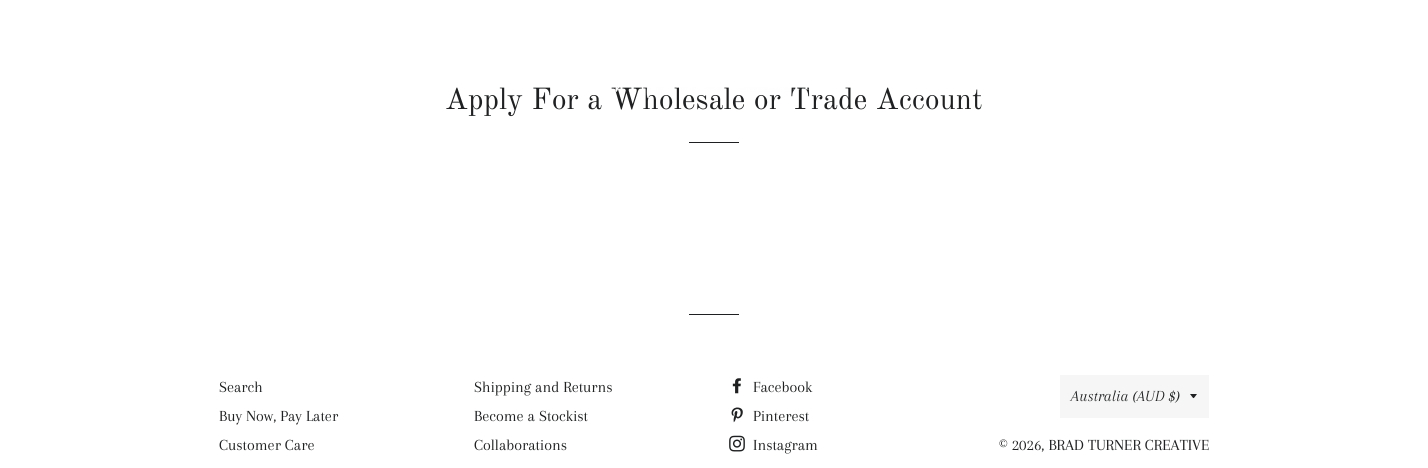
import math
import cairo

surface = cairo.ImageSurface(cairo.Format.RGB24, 1428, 468)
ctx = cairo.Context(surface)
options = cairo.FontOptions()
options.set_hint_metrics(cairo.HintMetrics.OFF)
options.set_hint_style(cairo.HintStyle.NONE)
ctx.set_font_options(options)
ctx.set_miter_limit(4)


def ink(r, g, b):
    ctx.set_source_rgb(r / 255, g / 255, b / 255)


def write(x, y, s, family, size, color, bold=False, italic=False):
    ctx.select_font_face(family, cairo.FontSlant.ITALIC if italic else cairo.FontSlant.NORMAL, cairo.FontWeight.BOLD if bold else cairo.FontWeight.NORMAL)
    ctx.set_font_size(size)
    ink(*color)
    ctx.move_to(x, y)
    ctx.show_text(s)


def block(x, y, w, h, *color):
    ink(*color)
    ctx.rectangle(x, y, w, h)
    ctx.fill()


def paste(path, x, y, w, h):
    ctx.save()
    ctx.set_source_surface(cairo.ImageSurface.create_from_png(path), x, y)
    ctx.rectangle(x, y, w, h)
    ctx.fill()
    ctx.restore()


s1 = dict(family="Old Standard TT", size=30, color=(31, 32, 33))
s2 = dict(family="Arapey", size=16, color=(31, 32, 33))
s3 = dict(family="Arapey", size=16, color=(31, 32, 33), italic=True)

ink(255, 255, 255)
ctx.paint()
write(445, 109, "Apply For a Wholesale or Trade Account", **s1)
block(689, 142, 50, 1, 31, 32, 33)
block(689, 314, 50, 1, 31, 32, 33)
write(219, 392, "Search", **s2)
write(219, 421, "Buy Now, Pay Later", **s2)
write(219, 450, "Customer Care", **s2)
write(474, 392, "Shipping and Returns", **s2)
write(474, 421, "Become a Stockist", **s2)
write(474, 450, "Collaborations", **s2)
paste("pic1.png", 732, 378, 9, 16)
write(753, 392, "Facebook", **s2)
paste("pic2.png", 731, 407, 12, 16)
write(753, 421, "Pinterest", **s2)
paste("pic3.png", 729, 435, 16, 17)
write(753, 450, "Instagram", **s2)
block(1060, 375, 149, 43, 246, 246, 246)
ink(31, 32, 33)
ctx.new_path()
ctx.move_to(1190, 394)
ctx.curve_to(1194.5, 399.5, 1192.5, 399.5, 1197, 394)
ctx.close_path()
ctx.fill()
write(1071, 401, "Australia (AUD $)", **s3)
write(999, 450, "© 2026, BRAD TURNER CREATIVE", **s2)
paste("pic4.png", 615, 87, 194, 12)
surface.write_to_png("screenshot.png")
